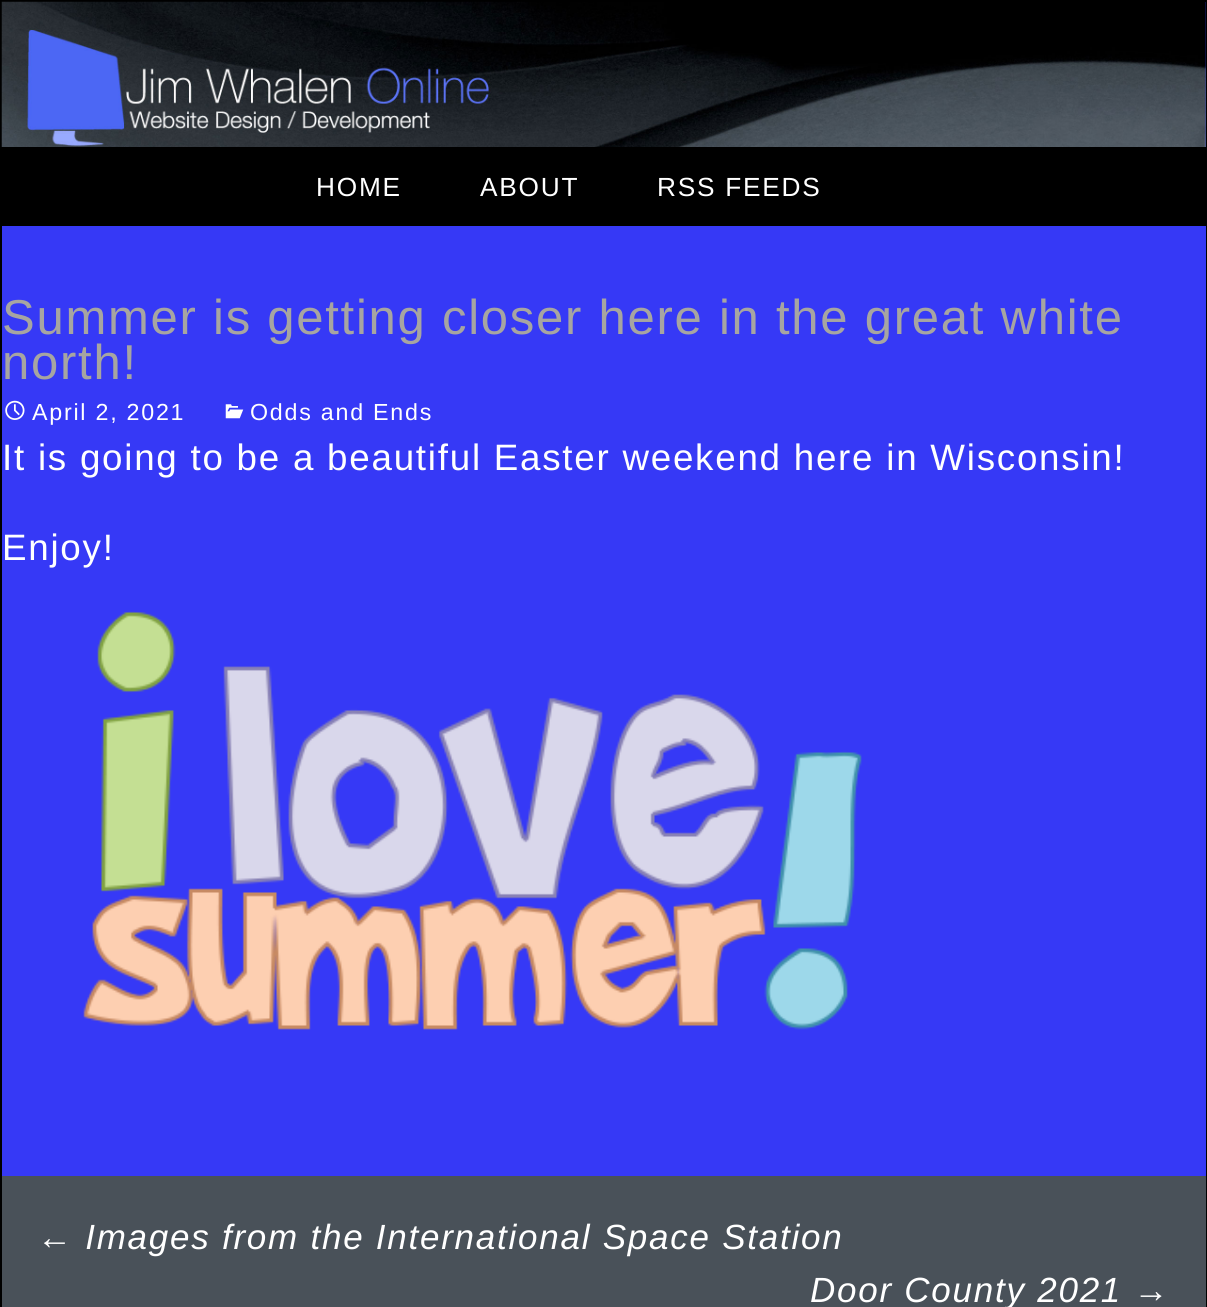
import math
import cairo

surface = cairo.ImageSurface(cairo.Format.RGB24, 1207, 1307)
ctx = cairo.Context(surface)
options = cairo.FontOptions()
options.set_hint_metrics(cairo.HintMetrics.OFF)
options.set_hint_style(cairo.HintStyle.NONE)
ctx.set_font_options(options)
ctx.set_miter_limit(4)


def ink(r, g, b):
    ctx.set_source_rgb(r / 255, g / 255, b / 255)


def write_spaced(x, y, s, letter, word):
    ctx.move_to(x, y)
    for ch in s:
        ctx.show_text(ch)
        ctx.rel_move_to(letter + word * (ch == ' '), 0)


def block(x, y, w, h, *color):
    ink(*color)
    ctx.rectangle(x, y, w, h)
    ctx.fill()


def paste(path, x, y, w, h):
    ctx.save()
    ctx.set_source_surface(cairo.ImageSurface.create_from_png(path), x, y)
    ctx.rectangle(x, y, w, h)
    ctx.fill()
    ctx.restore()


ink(0, 0, 0)
ctx.paint()
block(2, 2, 1204, 1174, 54, 57, 246)
paste("pic1.png", 1, 1, 1205, 146)
block(2, 147, 1204, 79, 0, 0, 0)
ctx.select_font_face("Liberation Sans")
ctx.set_font_size(26.25)
ink(255, 255, 255)
write_spaced(316, 196, "HOME", 1.75, 0)
write_spaced(480, 196, "ABOUT", 1.75, 0)
write_spaced(657, 196, "RSS FEEDS", 1.75, 0)
ctx.set_font_size(49)
ink(167, 165, 161)
write_spaced(2, 334, "Summer is getting closer here in the great white", 1.75, 0)
write_spaced(2, 379, "north!", 1.75, 0)
paste("pic2.png", 5, 400, 20, 20)
ctx.set_font_size(23.25)
ink(255, 255, 255)
write_spaced(32, 420, "April 2, 2021", 1.75, 0)
paste("pic3.png", 225, 404, 19, 15)
write_spaced(250, 420, "Odds and Ends", 1.75, 0)
ctx.set_font_size(36.75)
write_spaced(2, 470, "It is going to be a beautiful Easter weekend here in Wisconsin!", 1.75, 0)
write_spaced(2, 560, "Enjoy!", 1.75, 0)
paste("pic4.png", 83, 611, 779, 419)
block(2, 1176, 1204, 131, 73, 81, 89)
ctx.select_font_face("Liberation Sans", cairo.FontSlant.ITALIC)
ctx.set_font_size(35)
ink(255, 255, 255)
write_spaced(37, 1249, "← Images from the International Space Station", 1.75, 0)
write_spaced(810, 1302, "Door County 2021 →", 1.75, 0)
surface.write_to_png("screenshot.png")
